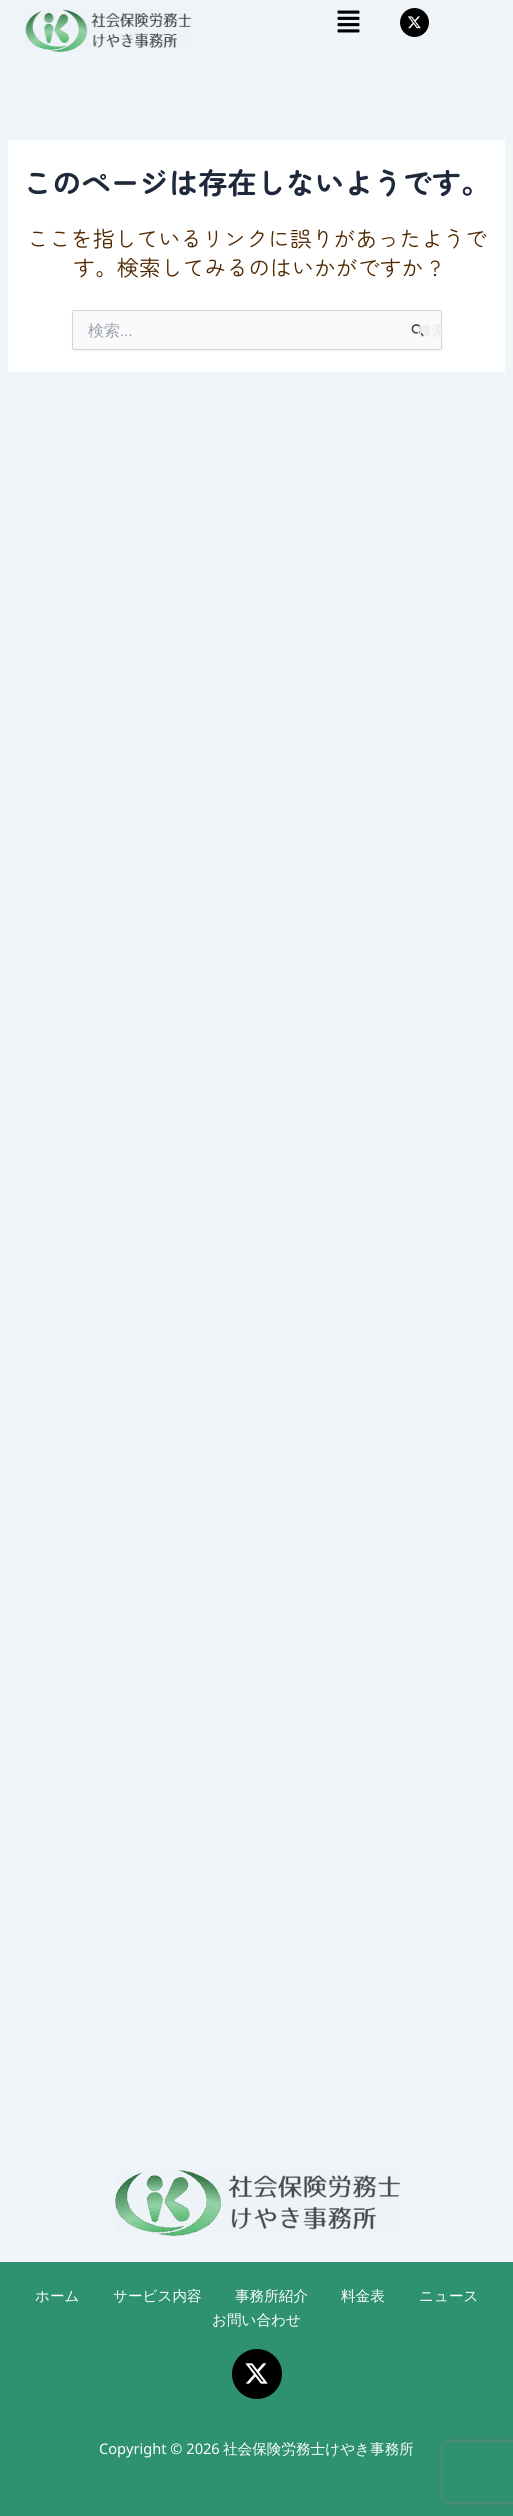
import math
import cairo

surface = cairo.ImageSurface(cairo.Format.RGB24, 513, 2516)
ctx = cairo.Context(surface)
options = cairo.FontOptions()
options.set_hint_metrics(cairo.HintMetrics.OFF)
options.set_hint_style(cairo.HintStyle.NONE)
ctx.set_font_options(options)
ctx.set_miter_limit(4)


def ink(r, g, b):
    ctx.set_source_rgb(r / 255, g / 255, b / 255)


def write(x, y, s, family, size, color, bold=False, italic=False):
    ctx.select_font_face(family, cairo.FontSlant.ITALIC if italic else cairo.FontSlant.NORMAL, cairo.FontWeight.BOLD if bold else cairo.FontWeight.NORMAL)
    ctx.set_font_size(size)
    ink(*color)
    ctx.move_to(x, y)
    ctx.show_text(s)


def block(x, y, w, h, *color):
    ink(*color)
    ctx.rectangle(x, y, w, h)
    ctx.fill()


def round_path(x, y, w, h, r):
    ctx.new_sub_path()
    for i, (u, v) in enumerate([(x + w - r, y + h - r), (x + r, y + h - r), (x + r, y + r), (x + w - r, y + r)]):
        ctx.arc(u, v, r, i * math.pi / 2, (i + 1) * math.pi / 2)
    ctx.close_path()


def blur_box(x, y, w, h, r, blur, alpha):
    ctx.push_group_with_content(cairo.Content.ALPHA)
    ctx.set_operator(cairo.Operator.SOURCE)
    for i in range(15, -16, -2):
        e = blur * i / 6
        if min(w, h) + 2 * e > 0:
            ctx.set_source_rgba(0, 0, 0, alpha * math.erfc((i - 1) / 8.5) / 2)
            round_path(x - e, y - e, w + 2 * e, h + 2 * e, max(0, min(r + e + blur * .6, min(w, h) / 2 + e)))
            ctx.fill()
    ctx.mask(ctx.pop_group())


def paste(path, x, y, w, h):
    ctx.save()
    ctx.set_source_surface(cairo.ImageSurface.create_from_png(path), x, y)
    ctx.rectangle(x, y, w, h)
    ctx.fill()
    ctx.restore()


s1 = dict(family="Zen Maru Gothic", size=29.2, color=(30, 41, 59), bold=True)
s2 = dict(family="Zen Maru Gothic", size=21.9, color=(79, 40, 0))
s3 = dict(family="WenQuanYi Zen Hei Medium", size=16, color=(156, 163, 175))
s4 = dict(family="Roboto", size=16, color=(156, 163, 175))
s5 = dict(family="Zen Maru Gothic Medium", size=14.6, color=(233, 233, 234))
s6 = dict(family="WenQuanYi Zen Hei Medium", size=14.6, color=(255, 255, 255))
s7 = dict(family="Noto Sans", size=14.6, color=(255, 255, 255))

ink(240, 245, 250)
ctx.paint()
paste("pic1.png", 25, 9, 167, 43)
paste("pic2.png", 337, 10, 23, 23)
ink(0, 0, 0)
ctx.arc(414.5, 22.5, 14.5, 0, 2 * math.pi)
ctx.fill()
paste("pic3.png", 407, 16, 14, 13)
block(8, 140, 497, 232, 255, 255, 255)
write(23, 194, "このページは存在しないようです。", **s1)
write(27, 247, "ここを指しているリンクに誤りがあったようで", **s2)
write(73, 276, "す。検索してみるのはいかがですか ?", **s2)
ink(0, 0, 0)
blur_box(72, 311, 370, 40, 2, 1, 0.05)
ink(250, 250, 250)
round_path(72.5, 310.5, 369, 39, 1.5)
ctx.fill_preserve()
ink(209, 213, 219)
ctx.set_line_width(1)
ctx.stroke()
write(88, 336, "検索", **s3)
write(120, 336, "...", **s4)
paste("pic4.png", 411, 324, 14, 13)
ctx.save()
round_path(397, 310, 45, 41, 2)
ctx.clip()
write(417, 336, "検索", **s5)
ctx.restore()
paste("pic5.png", 115, 2170, 285, 66)
block(0, 2262, 513, 254, 46, 146, 110)
write(35, 2301, "ホーム", **s6)
write(113, 2301, "サービス内容", **s6)
write(235, 2301, "事務所紹介", **s6)
write(341, 2301, "料金表", **s6)
write(419, 2301, "ニュース", **s6)
write(212, 2325, "お問い合わせ", **s6)
ink(0, 0, 0)
ctx.new_path()
ctx.arc(257, 2374, 25, 0, 2 * math.pi)
ctx.fill()
paste("pic6.png", 245, 2363, 23, 21)
write(99, 2454, "Copyright © 2026", **s7)
write(223, 2454, "社会保険労務士けやき事務所", **s6)
ctx.save()
ctx.set_fill_rule(cairo.FillRule.EVEN_ODD)
ctx.new_path()
ctx.move_to(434, 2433)
ctx.line_to(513, 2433)
ctx.line_to(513, 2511)
ctx.line_to(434, 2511)
ctx.close_path()
ctx.move_to(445, 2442)
ctx.line_to(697, 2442)
ctx.curve_to(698, 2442, 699, 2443, 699, 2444)
ctx.line_to(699, 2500)
ctx.curve_to(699, 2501, 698, 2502, 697, 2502)
ctx.line_to(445, 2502)
ctx.curve_to(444, 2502, 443, 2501, 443, 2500)
ctx.line_to(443, 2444)
ctx.curve_to(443, 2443, 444, 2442, 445, 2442)
ctx.close_path()
ctx.clip()
ink(128, 128, 128)
blur_box(443, 2442, 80, 60, 2, 2.5, 1)
ctx.restore()
surface.write_to_png("screenshot.png")
